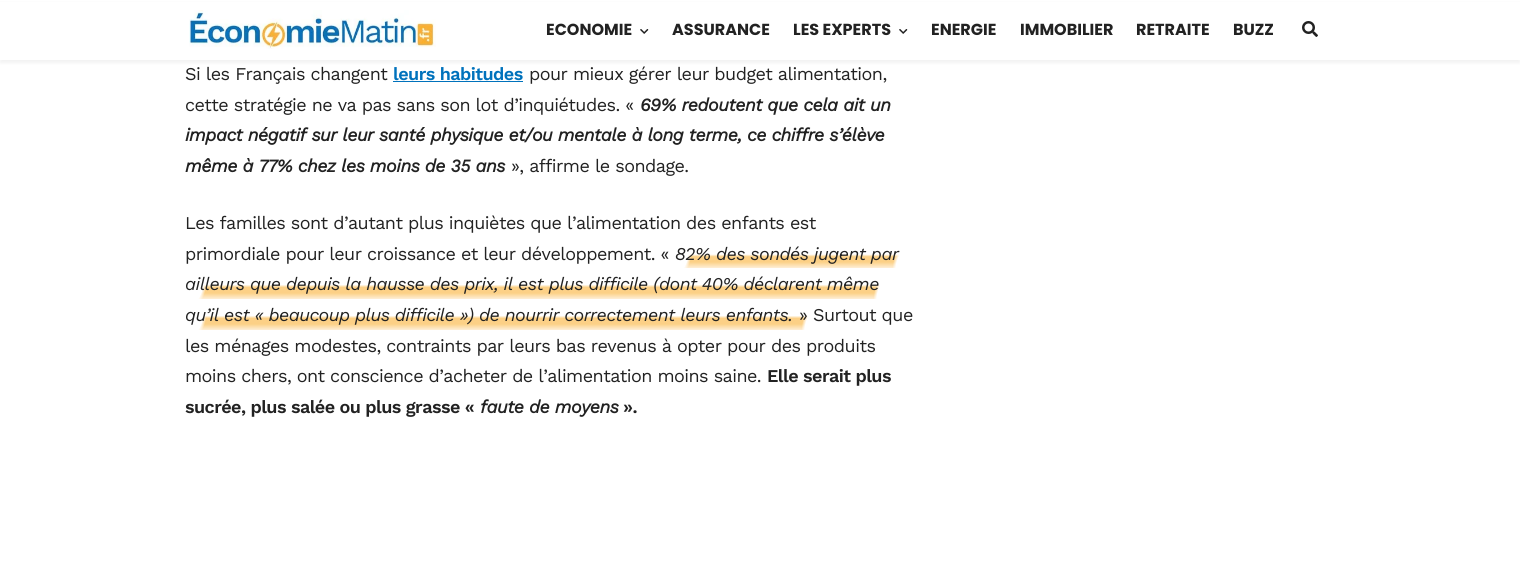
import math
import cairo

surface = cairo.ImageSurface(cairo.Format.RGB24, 1520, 577)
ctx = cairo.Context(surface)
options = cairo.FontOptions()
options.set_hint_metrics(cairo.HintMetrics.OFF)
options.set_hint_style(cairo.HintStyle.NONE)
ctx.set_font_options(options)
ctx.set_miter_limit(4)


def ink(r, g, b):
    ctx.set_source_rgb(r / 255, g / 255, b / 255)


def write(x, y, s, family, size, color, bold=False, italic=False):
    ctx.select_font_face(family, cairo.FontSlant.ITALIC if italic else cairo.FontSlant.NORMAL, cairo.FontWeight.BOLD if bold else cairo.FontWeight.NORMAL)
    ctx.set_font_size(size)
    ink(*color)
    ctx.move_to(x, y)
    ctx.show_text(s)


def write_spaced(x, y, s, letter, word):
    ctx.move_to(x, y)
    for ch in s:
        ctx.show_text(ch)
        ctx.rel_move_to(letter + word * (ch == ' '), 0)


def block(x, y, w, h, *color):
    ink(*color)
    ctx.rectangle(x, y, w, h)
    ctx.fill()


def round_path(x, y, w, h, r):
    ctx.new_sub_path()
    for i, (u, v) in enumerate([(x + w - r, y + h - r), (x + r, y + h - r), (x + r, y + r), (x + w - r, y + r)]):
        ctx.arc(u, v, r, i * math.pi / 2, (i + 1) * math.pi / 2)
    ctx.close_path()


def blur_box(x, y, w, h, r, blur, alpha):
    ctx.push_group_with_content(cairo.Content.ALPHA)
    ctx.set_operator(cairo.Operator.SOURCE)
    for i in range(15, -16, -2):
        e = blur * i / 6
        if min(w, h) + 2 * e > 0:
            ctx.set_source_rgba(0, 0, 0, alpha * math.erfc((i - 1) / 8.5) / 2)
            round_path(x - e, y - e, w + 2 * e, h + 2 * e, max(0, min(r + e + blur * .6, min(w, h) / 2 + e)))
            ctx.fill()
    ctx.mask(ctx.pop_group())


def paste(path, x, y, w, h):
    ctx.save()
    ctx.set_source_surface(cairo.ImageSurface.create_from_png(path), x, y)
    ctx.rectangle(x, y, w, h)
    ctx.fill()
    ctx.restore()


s1 = dict(family="Poppins", size=16, color=(34, 34, 34), bold=True)

ink(255, 255, 255)
ctx.paint()
ink(0, 0, 0)
blur_box(0, 3, 1520, 60, 0, 1.5, 0.05)
block(0, 2, 1520, 58, 255, 255, 255)
paste("pic1.png", 189, 10, 247, 39)
write(546, 35, "ECONOMIE", **s1)
paste("pic2.png", 640, 29, 9, 5)
write(672, 35, "ASSURANCE", **s1)
write(793, 35, "LES EXPERTS", **s1)
paste("pic2.png", 899, 29, 9, 5)
write(931, 35, "ENERGIE", **s1)
write(1020, 35, "IMMOBILIER", **s1)
write(1136, 35, "RETRAITE", **s1)
write(1233, 35, "BUZZ", **s1)
paste("pic3.png", 1302, 21, 16, 16)
ctx.select_font_face("Work Sans")
ctx.set_font_size(18)
write_spaced(185, 80, "Si les Français changent", -0.55, 0)
ctx.select_font_face("Work Sans SemiBold")
ink(0, 114, 188)
write_spaced(393, 80, "leurs habitudes", -0.55, 0)
block(393, 81, 130, 1, 0, 114, 188)
ctx.select_font_face("Work Sans")
ink(34, 34, 34)
write_spaced(529, 80, "pour mieux gérer leur budget alimentation,", -0.55, 0)
write_spaced(185, 111, "cette stratégie ne va pas sans son lot d’inquiétudes. «", -0.55, 0)
ctx.select_font_face("Work Sans", cairo.FontSlant.ITALIC, cairo.FontWeight.BOLD)
write_spaced(640, 111, "69% redoutent que cela ait un", -0.55, 0)
write_spaced(185, 141, "impact négatif sur leur santé physique et/ou mentale à long terme, ce chiffre s’élève", -0.55, 0)
write_spaced(185, 172, "même à 77% chez les moins de 35 ans", -0.55, 0)
ctx.select_font_face("Work Sans")
write_spaced(511, 172, "», affirme le sondage.", -0.55, 0)
write_spaced(185, 229, "Les familles sont d’autant plus inquiètes que l’alimentation des enfants est", -0.55, 0)
write_spaced(185, 260, "primordiale pour leur croissance et leur développement. «", -0.55, 0)
gradient = cairo.LinearGradient(785, 268, 785, 243)
gradient.add_color_stop_rgba(0, 0.996, 0.937, 0.843, 1)
gradient.add_color_stop_rgba(0.24, 0.988, 0.816, 0.525, 1)
gradient.add_color_stop_rgba(0.45, 0.988, 0.816, 0.525, 1)
gradient.add_color_stop_rgba(0.55, 1, 1, 1, 1)
ctx.set_source(gradient)
ctx.rectangle(684, 254, 215, 14)
ctx.fill()
gradient = cairo.RadialGradient(0, 0, 0, 0, 0, 1)
gradient.set_matrix(cairo.Matrix(1 / 27, 0, 0, 1 / 36, -1 * 914 / 27, -1 * 270 / 36))
gradient.add_color_stop_rgba(0.67, 1, 1, 1, 1)
gradient.add_color_stop_rgba(0.8, 1, 1, 1, 0)
ctx.set_source(gradient)
ctx.rectangle(893, 250, 6, 18)
ctx.fill()
gradient = cairo.RadialGradient(0, 0, 0, 0, 0, 1)
gradient.set_matrix(cairo.Matrix(1 / 27, 0, 0, 1 / 36, -1 * 670 / 27, -1 * 252 / 36))
gradient.add_color_stop_rgba(0.67, 1, 1, 1, 1)
gradient.add_color_stop_rgba(0.8, 1, 1, 1, 0)
ctx.set_source(gradient)
ctx.rectangle(684, 254, 7, 14)
ctx.fill()
ctx.select_font_face("Work Sans", cairo.FontSlant.ITALIC)
ink(34, 34, 34)
write_spaced(675, 260, "82% des sondés jugent par", -0.55, 0)
gradient = cairo.LinearGradient(533, 299, 533, 273)
gradient.add_color_stop_rgba(0, 0.996, 0.937, 0.843, 1)
gradient.add_color_stop_rgba(0.23, 0.988, 0.816, 0.525, 1)
gradient.add_color_stop_rgba(0.45, 0.988, 0.816, 0.525, 1)
gradient.add_color_stop_rgba(0.55, 1, 1, 1, 1)
ctx.set_source(gradient)
ctx.rectangle(198, 285, 682, 14)
ctx.fill()
gradient = cairo.RadialGradient(0, 0, 0, 0, 0, 1)
gradient.set_matrix(cairo.Matrix(1 / 27, 0, 0, 1 / 36, -1 * 895 / 27, -1 * 300 / 36))
gradient.add_color_stop_rgba(0.67, 1, 1, 1, 1)
gradient.add_color_stop_rgba(0.8, 1, 1, 1, 0)
ctx.set_source(gradient)
ctx.rectangle(874, 280, 6, 19)
ctx.fill()
gradient = cairo.RadialGradient(0, 0, 0, 0, 0, 1)
gradient.set_matrix(cairo.Matrix(1 / 27, 0, 0, 1 / 36, -1 * 185 / 27, -1 * 282 / 36))
gradient.add_color_stop_rgba(0.67, 1, 1, 1, 1)
gradient.add_color_stop_rgba(0.8, 1, 1, 1, 0)
ctx.set_source(gradient)
ctx.rectangle(198, 285, 8, 14)
ctx.fill()
ink(34, 34, 34)
write_spaced(185, 290, "ailleurs que depuis la hausse des prix, il est plus difficile (dont 40% déclarent même", -0.55, 0)
gradient = cairo.LinearGradient(497, 330, 497, 304)
gradient.add_color_stop_rgba(0, 0.996, 0.937, 0.843, 1)
gradient.add_color_stop_rgba(0.23, 0.988, 0.816, 0.525, 1)
gradient.add_color_stop_rgba(0.45, 0.988, 0.816, 0.525, 1)
gradient.add_color_stop_rgba(0.55, 1, 1, 1, 1)
ctx.set_source(gradient)
ctx.rectangle(198, 316, 610, 14)
ctx.fill()
gradient = cairo.RadialGradient(0, 0, 0, 0, 0, 1)
gradient.set_matrix(cairo.Matrix(1 / 27, 0, 0, 1 / 36, -1 * 185 / 27, -1 * 313 / 36))
gradient.add_color_stop_rgba(0.67, 1, 1, 1, 1)
gradient.add_color_stop_rgba(0.8, 1, 1, 1, 0)
ctx.set_source(gradient)
ctx.rectangle(198, 316, 8, 14)
ctx.fill()
ink(34, 34, 34)
write_spaced(185, 321, "qu’il est « beaucoup plus difficile ») de nourrir correctement leurs enfants.", -0.55, 0)
gradient = cairo.RadialGradient(0, 0, 0, 0, 0, 1)
gradient.set_matrix(cairo.Matrix(1 / 27, 0, 0, 1 / 36, -1 * 823 / 27, -1 * 331 / 36))
gradient.add_color_stop_rgba(0.67, 1, 1, 1, 1)
gradient.add_color_stop_rgba(0.8, 1, 1, 1, 0)
ctx.set_source(gradient)
ctx.rectangle(802, 311, 6, 19)
ctx.fill()
ctx.select_font_face("Work Sans")
ink(34, 34, 34)
write_spaced(799, 321, "» Surtout que", -0.55, 0)
write_spaced(185, 352, "les ménages modestes, contraints par leurs bas revenus à opter pour des produits", -0.55, 0)
write_spaced(185, 382, "moins chers, ont conscience d’acheter de l’alimentation moins saine.", -0.55, 0)
ctx.select_font_face("Work Sans SemiBold")
write_spaced(767, 382, "Elle serait plus", -0.55, 0)
write_spaced(185, 413, "sucrée, plus salée ou plus grasse «", -0.55, 0)
ctx.select_font_face("Work Sans", cairo.FontSlant.ITALIC, cairo.FontWeight.BOLD)
write_spaced(480, 413, "faute de moyens", -0.55, 0)
ctx.select_font_face("Work Sans SemiBold")
write_spaced(623, 413, "».", -0.55, 0)
surface.write_to_png("screenshot.png")
